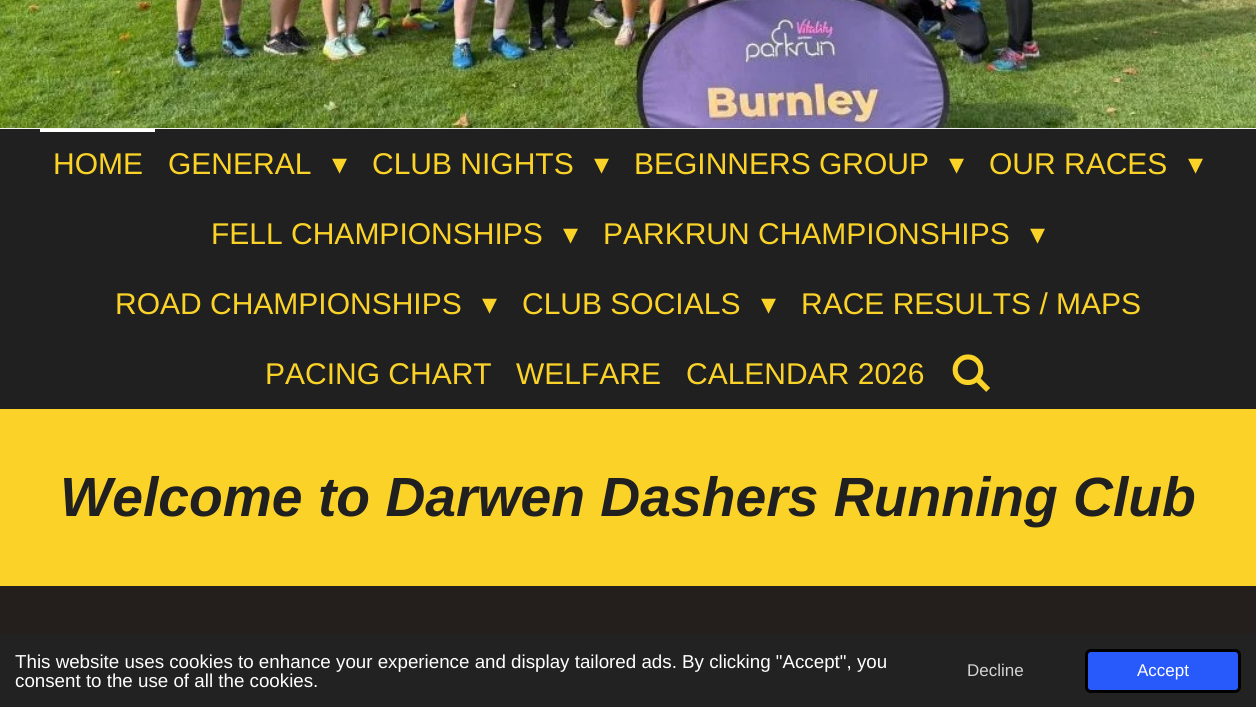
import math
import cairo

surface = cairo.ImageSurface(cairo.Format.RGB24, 1256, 707)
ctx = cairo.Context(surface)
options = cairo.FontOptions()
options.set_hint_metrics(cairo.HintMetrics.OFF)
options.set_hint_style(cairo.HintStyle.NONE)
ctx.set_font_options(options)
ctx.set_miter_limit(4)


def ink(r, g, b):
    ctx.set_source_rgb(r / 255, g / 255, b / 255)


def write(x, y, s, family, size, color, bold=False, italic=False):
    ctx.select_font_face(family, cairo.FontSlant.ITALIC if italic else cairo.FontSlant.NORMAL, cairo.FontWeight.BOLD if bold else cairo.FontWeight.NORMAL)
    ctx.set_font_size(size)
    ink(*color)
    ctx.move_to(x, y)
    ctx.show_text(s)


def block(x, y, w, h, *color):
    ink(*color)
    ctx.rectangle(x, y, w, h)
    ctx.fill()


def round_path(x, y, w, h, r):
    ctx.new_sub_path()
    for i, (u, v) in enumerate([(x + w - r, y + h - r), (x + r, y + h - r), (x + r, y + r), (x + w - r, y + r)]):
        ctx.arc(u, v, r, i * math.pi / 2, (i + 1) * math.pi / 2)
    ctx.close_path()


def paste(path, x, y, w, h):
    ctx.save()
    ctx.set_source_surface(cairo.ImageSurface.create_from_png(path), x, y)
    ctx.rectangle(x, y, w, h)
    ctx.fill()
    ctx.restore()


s1 = dict(family="Liberation Sans", size=30, color=(251, 211, 40))
s2 = dict(family="DejaVu Sans", size=30, color=(251, 211, 40))
s3 = dict(family="Liberation Sans", size=55.25, color=(32, 32, 32), bold=True, italic=True)
s4 = dict(family="Liberation Sans", size=18.75, color=(255, 255, 255))
s5 = dict(family="Liberation Sans", size=17, color=(211, 211, 211))
s6 = dict(family="Liberation Sans", size=17, color=(255, 255, 255))

ink(255, 255, 255)
ctx.paint()
paste("pic1.png", 0, 0, 1256, 129)
block(0, 129, 1256, 280, 32, 32, 32)
block(40, 129, 115, 3, 255, 255, 255)
write(53, 174, "HOME", **s1)
write(168, 174, "GENERAL", **s1)
write(332, 174, "▾", **s2)
write(372, 174, "CLUB NIGHTS", **s1)
write(594, 174, "▾", **s2)
write(634, 174, "BEGINNERS GROUP", **s1)
write(949, 174, "▾", **s2)
write(989, 174, "OUR RACES", **s1)
write(1188, 174, "▾", **s2)
write(211, 244, "FELL CHAMPIONSHIPS", **s1)
write(563, 244, "▾", **s2)
write(603, 244, "PARKRUN CHAMPIONSHIPS", **s1)
write(1030, 244, "▾", **s2)
write(115, 314, "ROAD CHAMPIONSHIPS", **s1)
write(482, 314, "▾", **s2)
write(522, 314, "CLUB SOCIALS", **s1)
write(761, 314, "▾", **s2)
write(801, 314, "RACE RESULTS / MAPS", **s1)
write(265, 384, "PACING CHART", **s1)
write(516, 384, "WELFARE", **s1)
write(686, 384, "CALENDAR 2026", **s1)
paste("pic2.png", 952, 354, 38, 38)
block(0, 409, 1256, 177, 251, 211, 40)
write(60, 516, "Welcome to Darwen Dashers Running Club", **s3)
block(0, 586, 1256, 48, 36, 31, 29)
block(0, 634, 1256, 73, 34, 34, 34)
write(15, 668, "This website uses cookies to enhance your experience and display tailored ads. By clicking \"Accept\", you", **s4)
write(15, 687, "consent to the use of all the cookies.", **s4)
write(967, 676, "Decline", **s5)
ink(40, 90, 251)
round_path(1086.5, 650.5, 153, 41, 4.5)
ctx.fill_preserve()
ink(0, 0, 0)
ctx.set_line_width(3)
ctx.stroke()
write(1137, 676, "Accept", **s6)
surface.write_to_png("screenshot.png")
